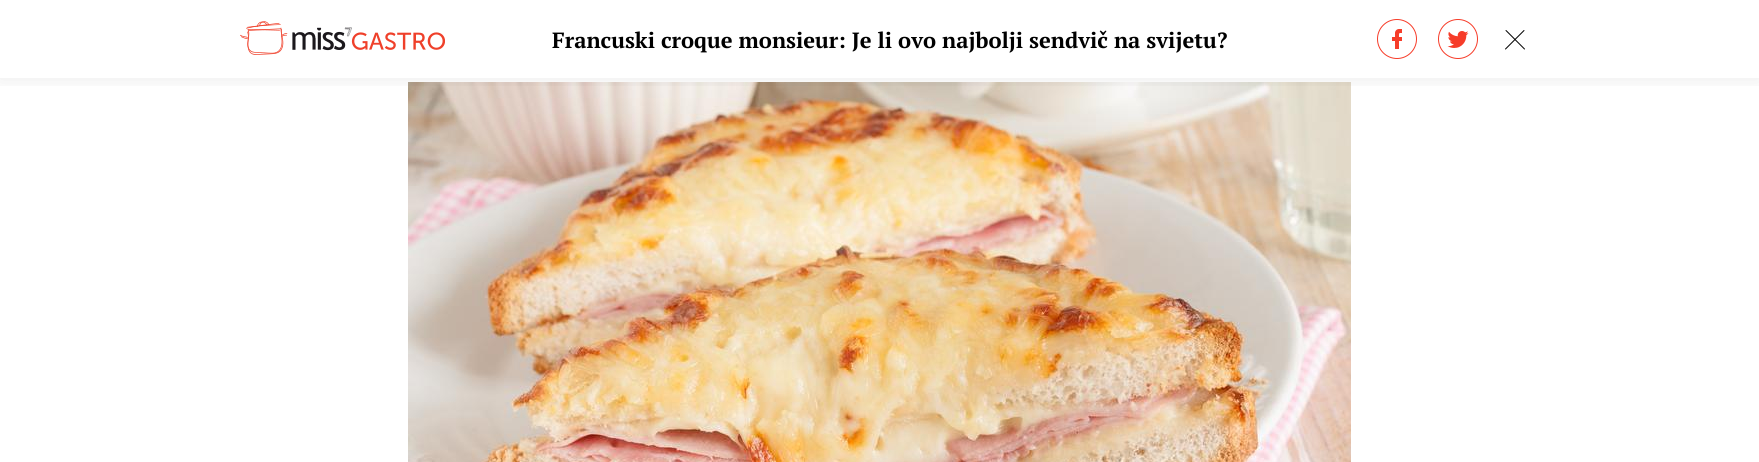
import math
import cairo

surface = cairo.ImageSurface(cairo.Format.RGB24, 1759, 462)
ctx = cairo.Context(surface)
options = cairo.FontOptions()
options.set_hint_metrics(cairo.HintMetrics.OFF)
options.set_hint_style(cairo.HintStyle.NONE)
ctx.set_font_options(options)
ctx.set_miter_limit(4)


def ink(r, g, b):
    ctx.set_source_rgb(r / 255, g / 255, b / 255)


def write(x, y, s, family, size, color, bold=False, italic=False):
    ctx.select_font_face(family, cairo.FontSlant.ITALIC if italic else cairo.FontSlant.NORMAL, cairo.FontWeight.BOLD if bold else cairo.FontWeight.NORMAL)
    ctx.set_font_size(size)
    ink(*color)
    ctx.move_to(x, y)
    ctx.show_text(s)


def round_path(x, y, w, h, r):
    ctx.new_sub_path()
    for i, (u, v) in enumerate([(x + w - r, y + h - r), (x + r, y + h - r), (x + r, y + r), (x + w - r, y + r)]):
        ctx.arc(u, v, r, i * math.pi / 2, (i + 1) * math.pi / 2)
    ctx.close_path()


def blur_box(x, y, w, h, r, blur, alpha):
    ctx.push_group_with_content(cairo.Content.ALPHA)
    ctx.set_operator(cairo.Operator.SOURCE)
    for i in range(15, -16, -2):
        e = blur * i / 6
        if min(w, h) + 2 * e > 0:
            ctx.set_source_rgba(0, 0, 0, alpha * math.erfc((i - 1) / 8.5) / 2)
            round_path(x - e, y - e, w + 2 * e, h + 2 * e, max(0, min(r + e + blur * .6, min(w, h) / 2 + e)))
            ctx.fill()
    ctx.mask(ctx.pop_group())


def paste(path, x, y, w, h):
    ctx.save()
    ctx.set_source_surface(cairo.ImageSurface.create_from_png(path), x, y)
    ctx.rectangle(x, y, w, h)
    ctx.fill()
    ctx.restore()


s1 = dict(family="PT Serif", size=22, color=(0, 0, 0), bold=True)

ink(255, 255, 255)
ctx.paint()
paste("pic5.png", 408, 82, 943, 380)
ctx.save()
ctx.rectangle(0, 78, 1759, 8)
ctx.clip()
ink(0, 0, 0)
blur_box(-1, -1, 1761, 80, 0, 10.5, 0.08)
ctx.restore()
paste("pic1.png", 240, 21, 205, 34)
write(552, 48, "Francuski croque monsieur: Je li ovo najbolji sendvič na svijetu?", **s1)
ctx.new_path()
ctx.arc(1397, 39, 19.5, 0, 2 * math.pi)
ink(246, 60, 41)
ctx.set_line_width(1)
ctx.stroke()
paste("pic2.png", 1392, 29, 10, 20)
ctx.arc(1458, 39, 19.5, 0, 2 * math.pi)
ctx.stroke()
paste("pic3.png", 1447, 31, 22, 17)
paste("pic4.png", 1505, 30, 20, 20)
surface.write_to_png("screenshot.png")
